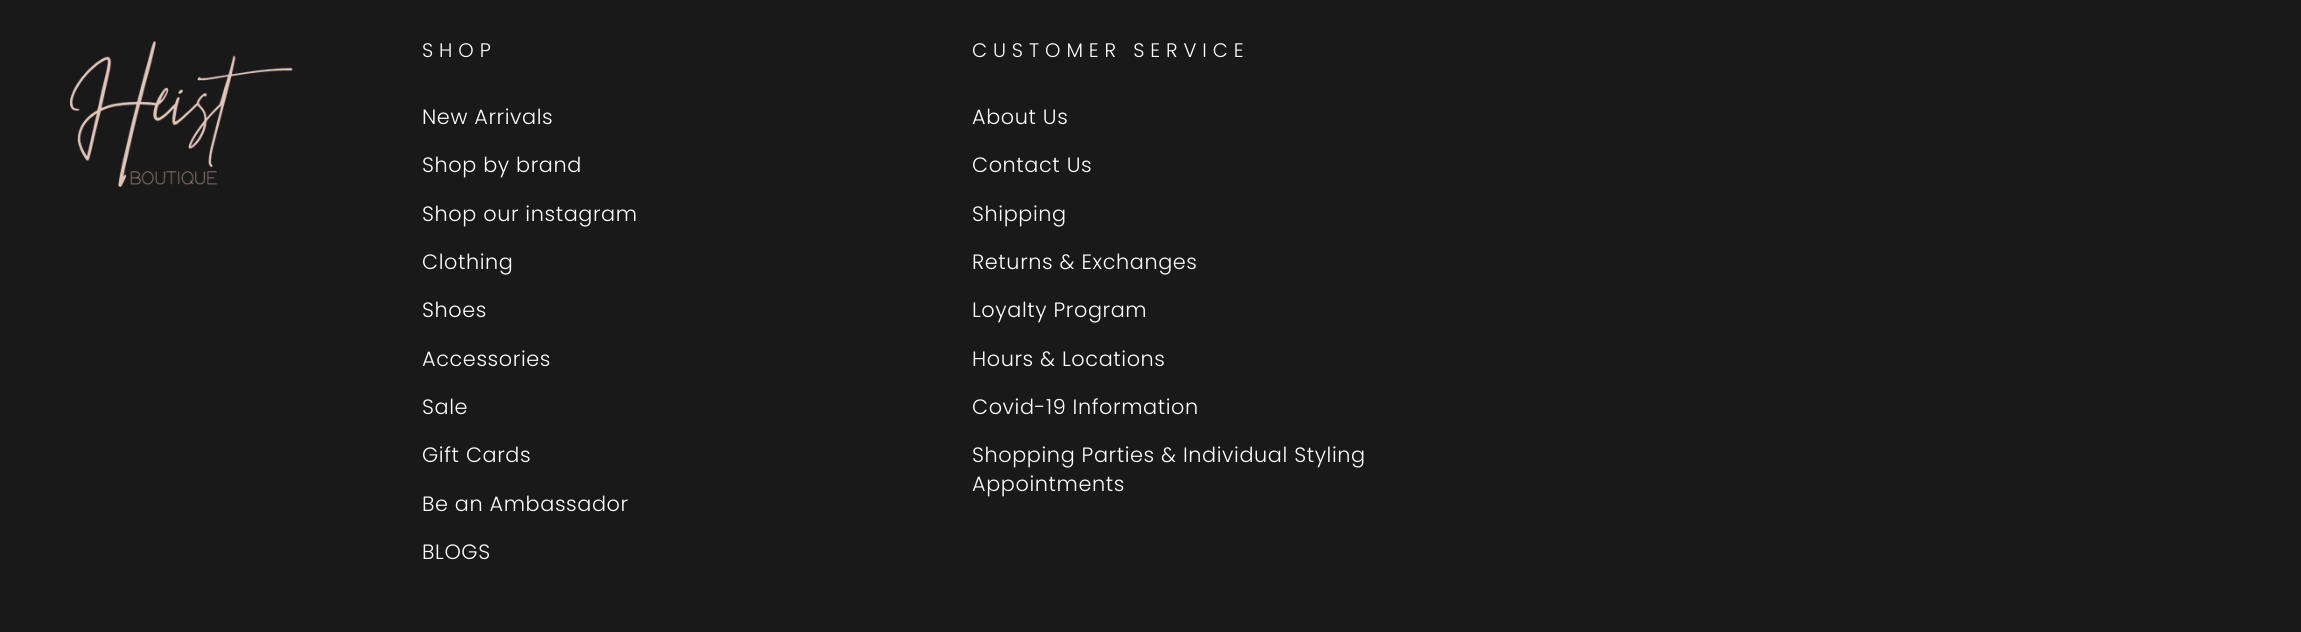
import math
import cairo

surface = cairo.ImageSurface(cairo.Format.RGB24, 2301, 632)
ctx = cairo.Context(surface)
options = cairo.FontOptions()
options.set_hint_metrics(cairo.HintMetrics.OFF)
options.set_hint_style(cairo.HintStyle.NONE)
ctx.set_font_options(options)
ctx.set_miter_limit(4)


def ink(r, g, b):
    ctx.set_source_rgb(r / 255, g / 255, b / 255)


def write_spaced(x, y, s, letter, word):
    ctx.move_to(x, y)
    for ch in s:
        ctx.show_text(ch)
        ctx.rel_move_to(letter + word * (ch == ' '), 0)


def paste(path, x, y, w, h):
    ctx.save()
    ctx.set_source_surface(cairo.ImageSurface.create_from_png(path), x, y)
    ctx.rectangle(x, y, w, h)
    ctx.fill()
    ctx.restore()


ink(26, 25, 25)
ctx.paint()
paste("pic1.png", 70, 41, 223, 146)
ctx.select_font_face("Poppins Light")
ctx.set_font_size(19.6)
ink(255, 255, 255)
write_spaced(422, 57, "SHOP", 5.9, 0)
ctx.set_font_size(20.8)
write_spaced(422, 124, "New Arrivals", 0.6, 0)
write_spaced(422, 172, "Shop by brand", 0.6, 0)
write_spaced(422, 221, "Shop our instagram", 0.6, 0)
write_spaced(422, 269, "Clothing", 0.6, 0)
write_spaced(422, 317, "Shoes", 0.6, 0)
write_spaced(422, 366, "Accessories", 0.6, 0)
write_spaced(422, 414, "Sale", 0.6, 0)
write_spaced(422, 462, "Gift Cards", 0.6, 0)
write_spaced(422, 511, "Be an Ambassador", 0.6, 0)
write_spaced(422, 559, "BLOGS", 0.6, 0)
ctx.set_font_size(19.6)
write_spaced(972, 57, "CUSTOMER SERVICE", 5.9, 0)
ctx.set_font_size(20.8)
write_spaced(972, 124, "About Us", 0.6, 0)
write_spaced(972, 172, "Contact Us", 0.6, 0)
write_spaced(972, 221, "Shipping", 0.6, 0)
write_spaced(972, 269, "Returns & Exchanges", 0.6, 0)
write_spaced(972, 317, "Loyalty Program", 0.6, 0)
write_spaced(972, 366, "Hours & Locations", 0.6, 0)
write_spaced(972, 414, "Covid-19 Information", 0.6, 0)
write_spaced(972, 462, "Shopping Parties & Individual Styling", 0.6, 0)
write_spaced(972, 491, "Appointments", 0.6, 0)
surface.write_to_png("screenshot.png")
